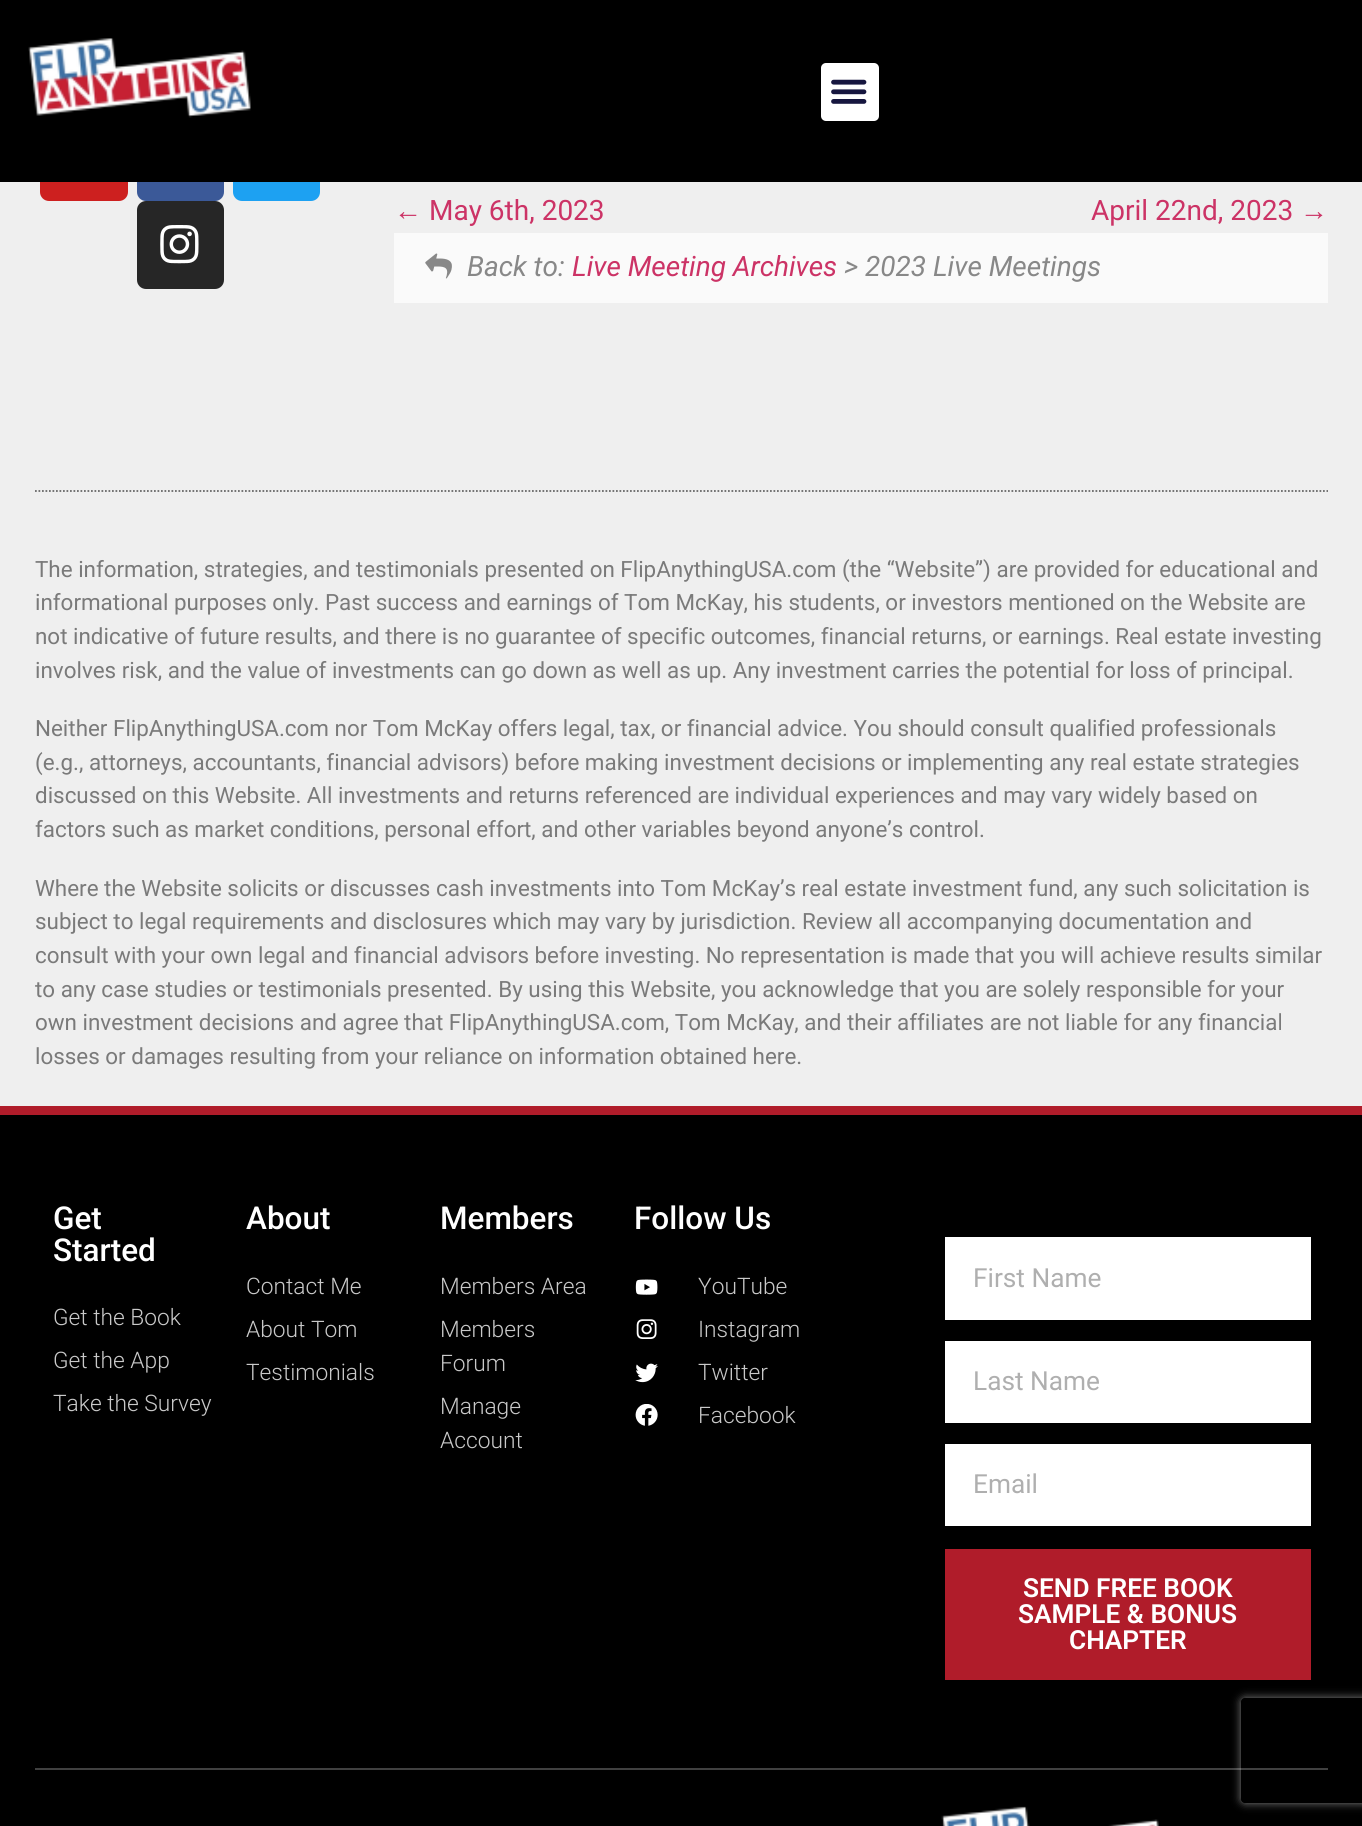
import math
import cairo

surface = cairo.ImageSurface(cairo.Format.RGB24, 1362, 1826)
ctx = cairo.Context(surface)
options = cairo.FontOptions()
options.set_hint_metrics(cairo.HintMetrics.OFF)
options.set_hint_style(cairo.HintStyle.NONE)
ctx.set_font_options(options)
ctx.set_miter_limit(4)


def ink(r, g, b):
    ctx.set_source_rgb(r / 255, g / 255, b / 255)


def write(x, y, s, family, size, color, bold=False, italic=False):
    ctx.select_font_face(family, cairo.FontSlant.ITALIC if italic else cairo.FontSlant.NORMAL, cairo.FontWeight.BOLD if bold else cairo.FontWeight.NORMAL)
    ctx.set_font_size(size)
    ink(*color)
    ctx.move_to(x, y)
    ctx.show_text(s)


def block(x, y, w, h, *color):
    ink(*color)
    ctx.rectangle(x, y, w, h)
    ctx.fill()


def round_path(x, y, w, h, r):
    ctx.new_sub_path()
    for i, (u, v) in enumerate([(x + w - r, y + h - r), (x + r, y + h - r), (x + r, y + r), (x + w - r, y + r)]):
        ctx.arc(u, v, r, i * math.pi / 2, (i + 1) * math.pi / 2)
    ctx.close_path()


def blur_box(x, y, w, h, r, blur, alpha):
    ctx.push_group_with_content(cairo.Content.ALPHA)
    ctx.set_operator(cairo.Operator.SOURCE)
    for i in range(15, -16, -2):
        e = blur * i / 6
        if min(w, h) + 2 * e > 0:
            ctx.set_source_rgba(0, 0, 0, alpha * math.erfc((i - 1) / 8.5) / 2)
            round_path(x - e, y - e, w + 2 * e, h + 2 * e, max(0, min(r + e + blur * .6, min(w, h) / 2 + e)))
            ctx.fill()
    ctx.mask(ctx.pop_group())


def paste(path, x, y, w, h):
    ctx.save()
    ctx.set_source_surface(cairo.ImageSurface.create_from_png(path), x, y)
    ctx.rectangle(x, y, w, h)
    ctx.fill()
    ctx.restore()


s1 = dict(family="Liberation Sans", size=28, color=(204, 51, 102))
s2 = dict(family="Roboto", size=28, color=(204, 51, 102))
s3 = dict(family="Roboto", size=28, color=(136, 136, 136), italic=True)
s4 = dict(family="Roboto", size=28, color=(204, 51, 102), italic=True)
s5 = dict(family="Roboto", size=22.4, color=(122, 122, 122))
s6 = dict(family="Roboto Medium", size=31.5, color=(255, 255, 255))
s7 = dict(family="Roboto Light", size=22.75, color=(201, 201, 201))
s8 = dict(family="Roboto", size=26.25, color=(175, 175, 175))
s9 = dict(family="Roboto SemiBold", size=26.25, color=(255, 255, 255))

ink(239, 239, 239)
ctx.paint()
ink(205, 32, 31)
round_path(40, 114, 88, 87, 9)
ctx.fill()
ink(59, 89, 152)
round_path(137, 114, 87, 87, 9)
ctx.fill()
ink(29, 161, 242)
round_path(233, 114, 87, 87, 9)
ctx.fill()
block(0, 0, 1362, 182, 0, 0, 0)
paste("pic1.png", 28, 38, 223, 80)
ink(255, 255, 255)
round_path(821, 63, 58, 58, 5)
ctx.fill()
paste("pic2.png", 831, 79, 36, 25)
ink(38, 38, 38)
round_path(137, 201, 87, 88, 9)
ctx.fill()
paste("pic3.png", 160, 225, 39, 39)
write(394, 220, "←", **s1)
write(429, 220, "May 6th, 2023", **s2)
write(1091, 220, "April 22nd, 2023", **s2)
write(1300, 220, "→", **s1)
block(394, 233, 934, 70, 250, 250, 250)
paste("pic4.png", 425, 253, 27, 26)
write(467, 276, "Back to:", **s3)
write(572, 276, "Live Meeting Archives", **s4)
write(844, 276, "> 2023 Live Meetings", **s3)
ctx.new_path()
ctx.move_to(35, 491)
ctx.line_to(1328, 491)
ink(104, 104, 104)
ctx.set_line_width(1.8)
ctx.set_dash([1.75, 1.75])
ctx.stroke()
write(35, 577, "The information, strategies, and testimonials presented on FlipAnythingUSA.com (the “Website”) are provided for educational and", **s5)
write(35, 610, "informational purposes only. Past success and earnings of Tom McKay, his students, or investors mentioned on the Website are", **s5)
write(35, 644, "not indicative of future results, and there is no guarantee of specific outcomes, financial returns, or earnings. Real estate investing", **s5)
write(35, 678, "involves risk, and the value of investments can go down as well as up. Any investment carries the potential for loss of principal.", **s5)
write(35, 736, "Neither FlipAnythingUSA.com nor Tom McKay offers legal, tax, or financial advice. You should consult qualified professionals", **s5)
write(35, 770, "(e.g., attorneys, accountants, financial advisors) before making investment decisions or implementing any real estate strategies", **s5)
write(35, 803, "discussed on this Website. All investments and returns referenced are individual experiences and may vary widely based on", **s5)
write(35, 837, "factors such as market conditions, personal effort, and other variables beyond anyone’s control.", **s5)
write(35, 896, "Where the Website solicits or discusses cash investments into Tom McKay’s real estate investment fund, any such solicitation is", **s5)
write(35, 929, "subject to legal requirements and disclosures which may vary by jurisdiction. Review all accompanying documentation and", **s5)
write(35, 963, "consult with your own legal and financial advisors before investing. No representation is made that you will achieve results similar", **s5)
write(35, 997, "to any case studies or testimonials presented. By using this Website, you acknowledge that you are solely responsible for your", **s5)
write(35, 1030, "own investment decisions and agree that FlipAnythingUSA.com, Tom McKay, and their affiliates are not liable for any financial", **s5)
write(35, 1064, "losses or damages resulting from your reliance on information obtained here.", **s5)
block(0, 1115, 1362, 711, 0, 0, 0)
block(0, 1106, 1362, 9, 176, 28, 42)
write(53, 1229, "Get", **s6)
write(53, 1261, "Started", **s6)
write(53, 1325, "Get the Book", **s7)
write(53, 1368, "Get the App", **s7)
write(53, 1411, "Take the Survey", **s7)
write(246, 1229, "About", **s6)
write(246, 1294, "Contact Me", **s7)
write(246, 1337, "About Tom", **s7)
write(246, 1380, "Testimonials", **s7)
write(440, 1229, "Members", **s6)
write(440, 1294, "Members Area", **s7)
write(440, 1337, "Members", **s7)
write(440, 1371, "Forum", **s7)
write(440, 1414, "Manage", **s7)
write(440, 1448, "Account", **s7)
write(634, 1229, "Follow Us", **s6)
paste("pic5.png", 635, 1279, 23, 16)
write(698, 1294, "YouTube", **s7)
paste("pic6.png", 636, 1319, 21, 20)
write(698, 1337, "Instagram", **s7)
paste("pic7.png", 635, 1363, 23, 20)
write(698, 1380, "Twitter", **s7)
paste("pic8.png", 635, 1404, 23, 22)
write(698, 1423, "Facebook", **s7)
block(945, 1237, 366, 83, 255, 255, 255)
write(973, 1287, "First Name", **s8)
block(945, 1341, 366, 82, 255, 255, 255)
write(973, 1390, "Last Name", **s8)
block(945, 1444, 366, 82, 255, 255, 255)
write(973, 1493, "Email", **s8)
block(945, 1549, 366, 131, 176, 28, 42)
write(1023, 1597, "SEND FREE BOOK", **s9)
write(1018, 1623, "SAMPLE & BONUS", **s9)
write(1069, 1649, "CHAPTER", **s9)
ctx.save()
ctx.set_fill_rule(cairo.FillRule.EVEN_ODD)
ctx.new_path()
ctx.move_to(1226, 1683)
ctx.line_to(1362, 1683)
ctx.line_to(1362, 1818)
ctx.line_to(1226, 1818)
ctx.close_path()
ctx.move_to(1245, 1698)
ctx.line_to(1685, 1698)
ctx.curve_to(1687, 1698, 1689, 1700, 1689, 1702)
ctx.line_to(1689, 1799)
ctx.curve_to(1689, 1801, 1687, 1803, 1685, 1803)
ctx.line_to(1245, 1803)
ctx.curve_to(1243, 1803, 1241, 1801, 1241, 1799)
ctx.line_to(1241, 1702)
ctx.curve_to(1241, 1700, 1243, 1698, 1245, 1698)
ctx.close_path()
ctx.clip()
ink(128, 128, 128)
blur_box(1241, 1698, 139, 105, 4, 4.5, 1)
ctx.restore()
ctx.set_source_rgba(1, 1, 1, 0.25)
ctx.rectangle(35, 1768, 1293, 2)
ctx.fill()
paste("pic9.png", 941, 1806, 218, 20)
surface.write_to_png("screenshot.png")
